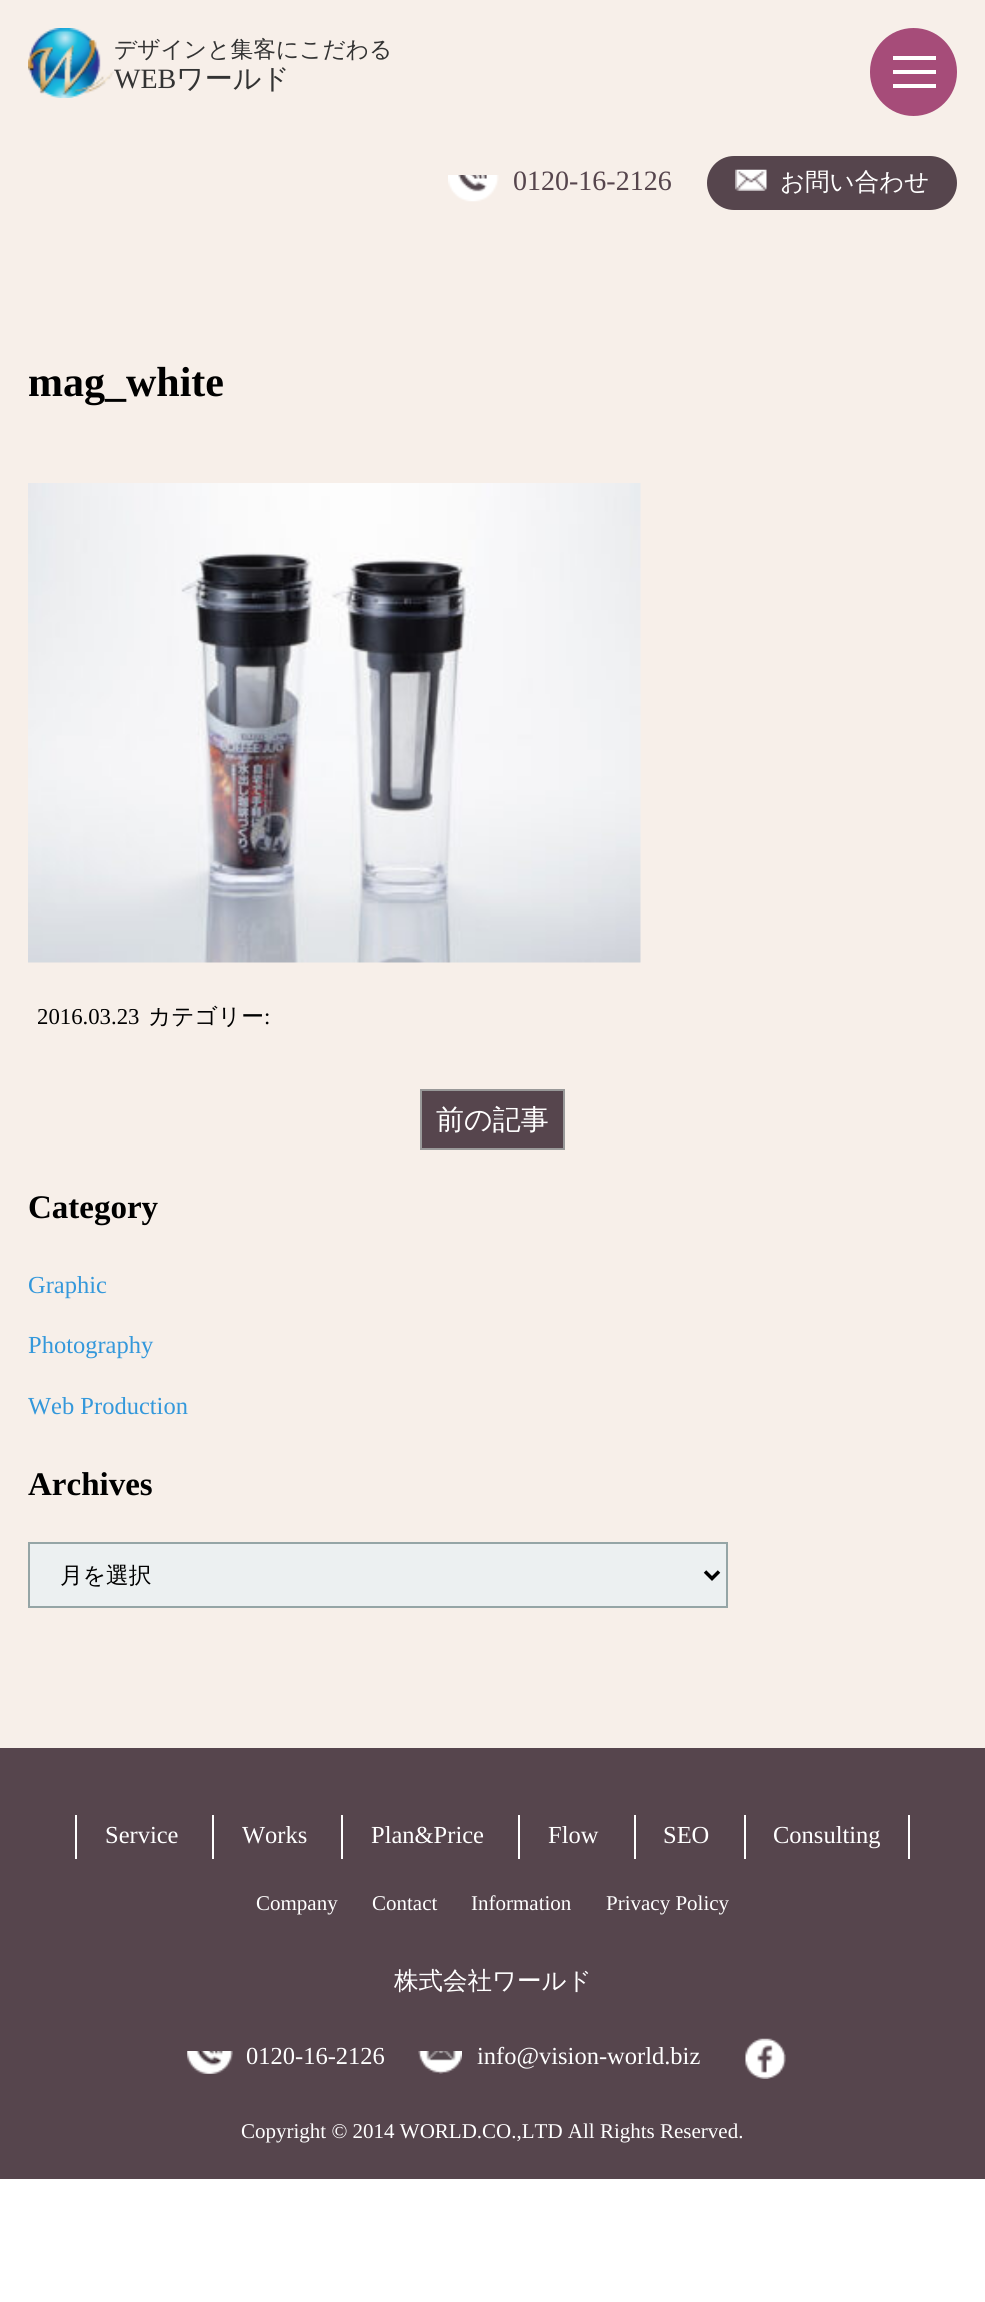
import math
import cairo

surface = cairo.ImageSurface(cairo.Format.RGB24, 985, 2302)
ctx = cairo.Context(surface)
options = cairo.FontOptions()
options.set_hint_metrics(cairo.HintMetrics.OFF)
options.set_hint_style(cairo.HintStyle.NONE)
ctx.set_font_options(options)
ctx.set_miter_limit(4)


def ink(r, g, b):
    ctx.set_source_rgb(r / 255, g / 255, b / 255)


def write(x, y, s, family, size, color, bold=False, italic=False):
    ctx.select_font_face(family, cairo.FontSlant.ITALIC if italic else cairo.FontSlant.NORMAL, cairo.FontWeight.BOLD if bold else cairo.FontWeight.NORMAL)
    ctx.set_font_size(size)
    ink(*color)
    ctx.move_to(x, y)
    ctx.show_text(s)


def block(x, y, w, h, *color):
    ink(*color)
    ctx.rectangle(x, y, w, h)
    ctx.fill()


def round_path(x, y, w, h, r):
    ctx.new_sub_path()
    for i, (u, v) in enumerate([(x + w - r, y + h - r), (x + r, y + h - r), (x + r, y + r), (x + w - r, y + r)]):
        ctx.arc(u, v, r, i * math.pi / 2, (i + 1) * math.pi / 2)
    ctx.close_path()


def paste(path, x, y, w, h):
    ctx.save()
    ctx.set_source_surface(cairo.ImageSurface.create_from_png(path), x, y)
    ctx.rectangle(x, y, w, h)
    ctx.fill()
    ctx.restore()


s1 = dict(family="WenQuanYi Zen Hei Medium", size=22.75, color=(51, 51, 51))
s2 = dict(family="Liberation Serif", size=28, color=(51, 51, 51))
s3 = dict(family="WenQuanYi Zen Hei Medium", size=28, color=(51, 51, 51))
s4 = dict(family="Liberation Serif", size=28, color=(86, 69, 77))
s5 = dict(family="WenQuanYi Zen Hei Medium", size=24.5, color=(255, 255, 255))
s6 = dict(family="Liberation Serif", size=42, color=(0, 0, 0), bold=True)
s7 = dict(family="Liberation Serif", size=22.75, color=(0, 0, 0))
s8 = dict(family="WenQuanYi Zen Hei Medium", size=22.75, color=(0, 0, 0))
s9 = dict(family="WenQuanYi Zen Hei Medium", size=28, color=(255, 255, 255))
s10 = dict(family="Liberation Serif", size=33, color=(0, 0, 0), bold=True)
s11 = dict(family="Liberation Serif", size=24.5, color=(52, 152, 219))
s12 = dict(family="Liberation Serif", size=24.5, color=(255, 255, 255))
s13 = dict(family="Liberation Serif", size=21, color=(255, 255, 255))

ink(255, 255, 255)
ctx.paint()
block(0, 0, 985, 1748, 247, 239, 233)
paste("pic1.png", 28, 28, 86, 70)
write(114, 57, "デザインと集客にこだわる", **s1)
write(114, 88, "WEB", **s2)
write(176, 88, "ワールド", **s3)
ink(166, 76, 121)
round_path(870, 28, 87, 88, 43.5)
ctx.fill()
block(893, 56, 43, 4, 255, 255, 255)
block(893, 70, 43, 4, 255, 255, 255)
block(893, 84, 43, 4, 255, 255, 255)
paste("pic2.png", 448, 175, 51, 27)
write(513, 190, "0120-16-2126", **s4)
round_path(707, 156, 250, 54, 27)
ctx.fill()
paste("pic3.png", 735, 169, 32, 22)
write(780, 190, "お問い合わせ", **s5)
write(28, 396, "mag_white", **s6)
paste("pic4.png", 28, 483, 613, 480)
write(37, 1024, "2016.03.23", **s7)
write(148, 1024, "カテゴリー", **s8)
write(264, 1024, ":", **s7)
ink(86, 69, 77)
ctx.rectangle(421, 1090, 143, 59)
ctx.fill_preserve()
ink(153, 153, 153)
ctx.stroke()
write(436, 1129, "前の記事", **s9)
write(28, 1218, "Category", **s10)
write(28, 1293, "Graphic", **s11)
write(28, 1353, "Photography", **s11)
write(28, 1414, "Web Production", **s11)
write(28, 1495, "Archives", **s10)
ink(236, 240, 241)
ctx.rectangle(29, 1543, 698, 64)
ctx.fill_preserve()
ink(149, 165, 166)
ctx.stroke()
ctx.new_path()
ctx.move_to(705, 1571.5)
ctx.line_to(712, 1578.5)
ctx.line_to(719, 1571.5)
ink(0, 0, 0)
ctx.set_line_width(3.5)
ctx.stroke()
write(60, 1583, "月を選択", **s8)
block(0, 1748, 985, 431, 86, 69, 77)
block(75, 1815, 2, 44, 255, 255, 255)
write(105, 1843, "Service", **s12)
block(212, 1815, 2, 44, 255, 255, 255)
write(242, 1843, "Works", **s12)
block(341, 1815, 2, 44, 255, 255, 255)
write(371, 1843, "Plan&Price", **s12)
block(518, 1815, 2, 44, 255, 255, 255)
write(548, 1843, "Flow", **s12)
block(634, 1815, 2, 44, 255, 255, 255)
write(663, 1843, "SEO", **s12)
block(908, 1815, 2, 44, 255, 255, 255)
block(744, 1815, 2, 44, 255, 255, 255)
write(773, 1843, "Consulting", **s12)
write(256, 1910, "Company", **s13)
write(372, 1910, "Contact", **s13)
write(471, 1910, "Information", **s13)
write(606, 1910, "Privacy Policy", **s13)
write(394, 1989, "株式会社ワールド", **s5)
paste("pic5.png", 187, 2051, 46, 23)
write(246, 2064, "0120-16-2126", **s12)
paste("pic6.png", 418, 2051, 44, 23)
write(477, 2064, "info@vision-world.biz", **s12)
paste("pic7.png", 745, 2038, 41, 41)
write(241, 2138, "Copyright © 2014 WORLD.CO.,LTD All Rights Reserved.", **s13)
surface.write_to_png("screenshot.png")
